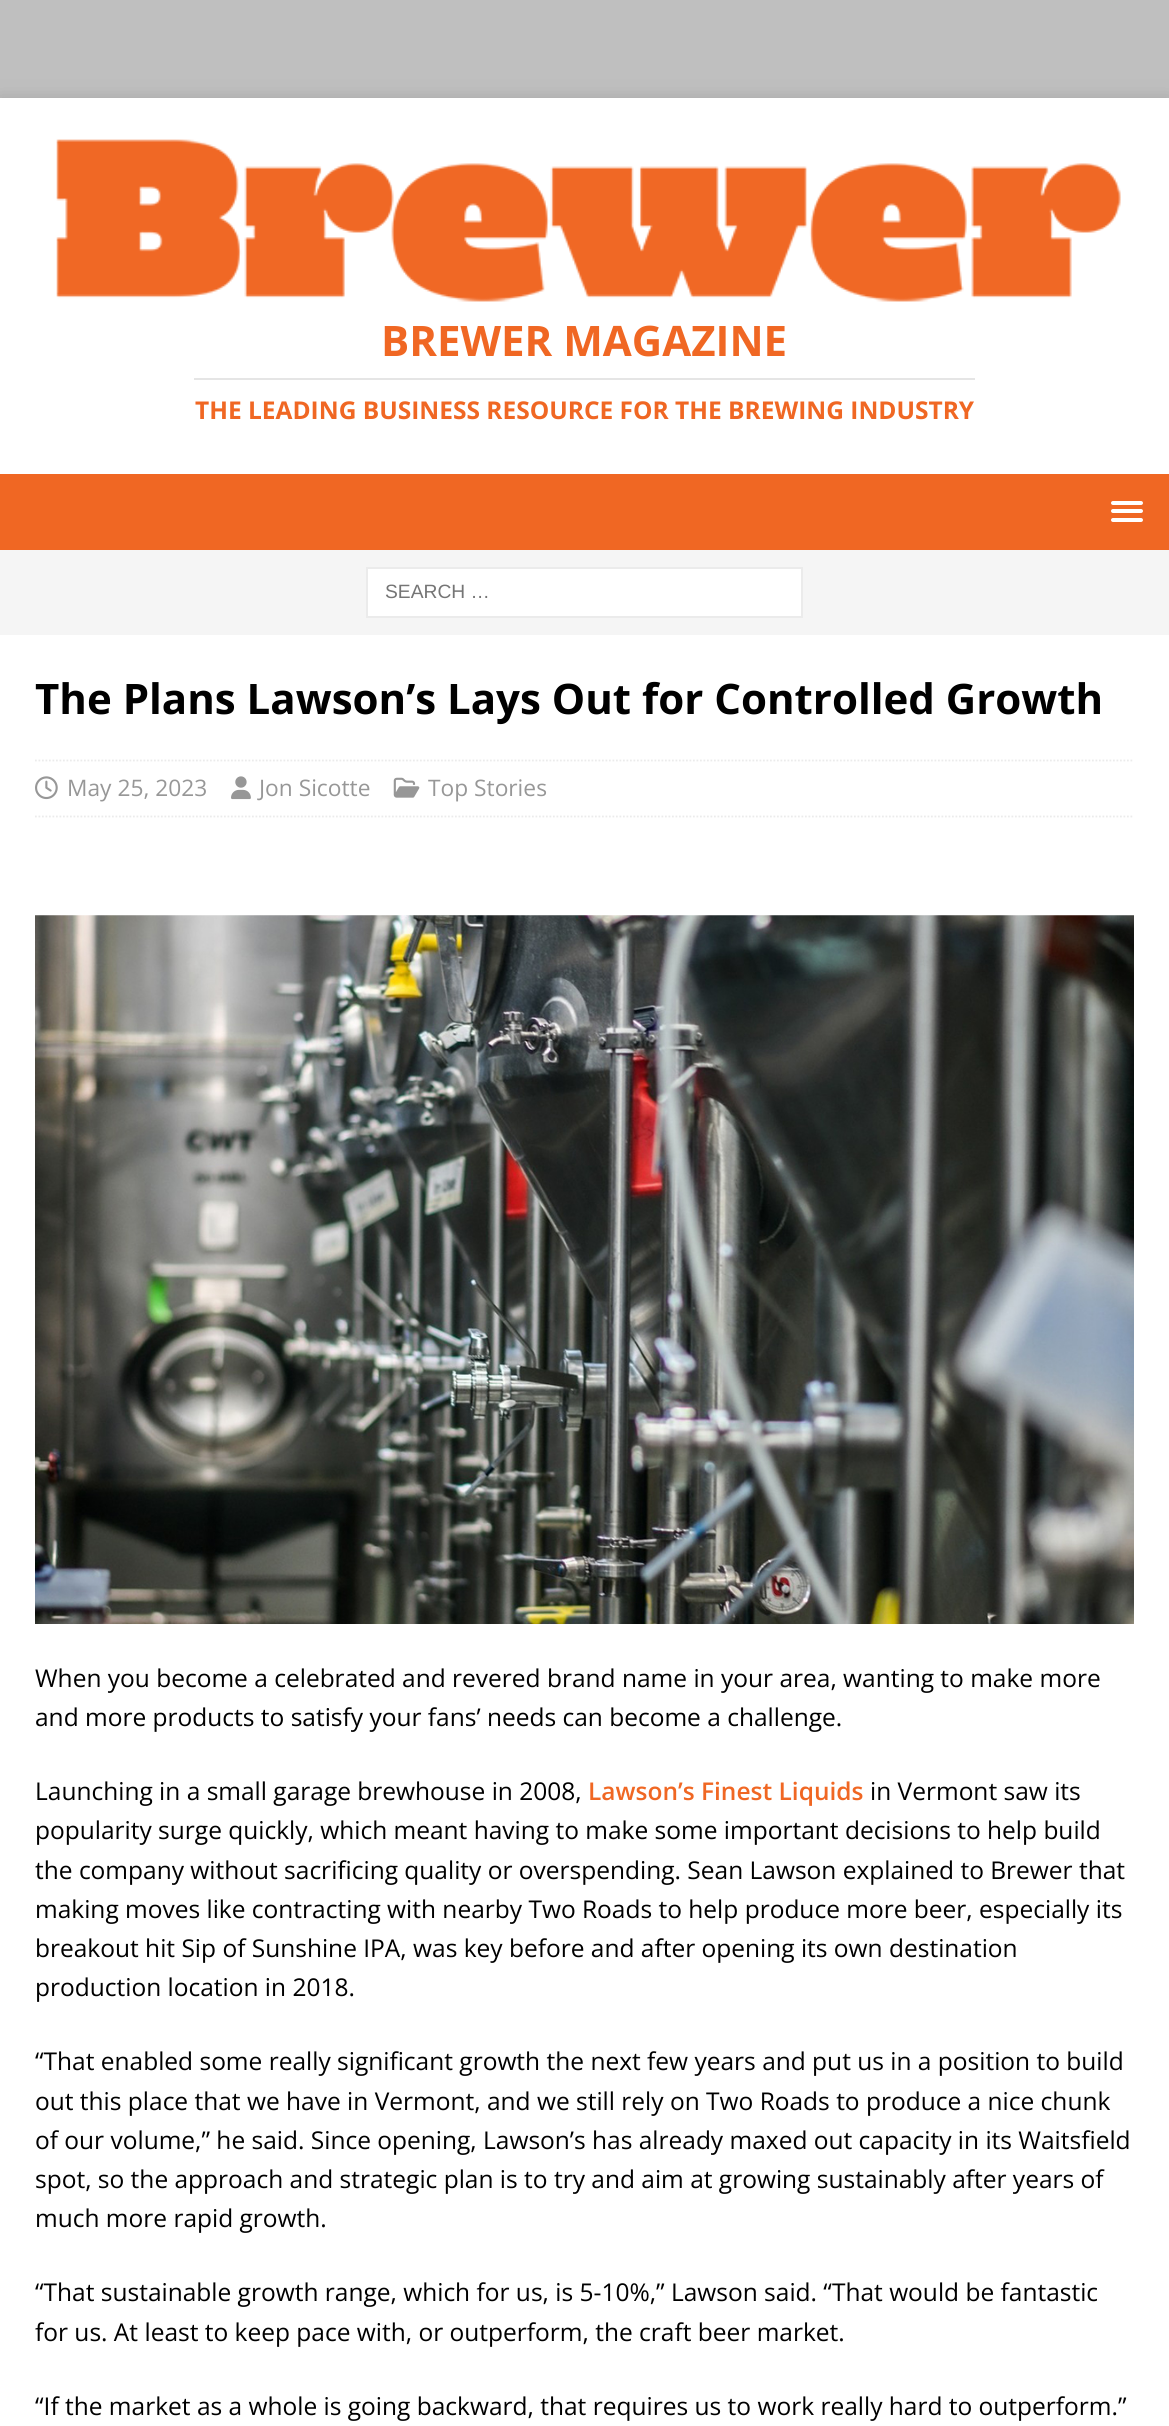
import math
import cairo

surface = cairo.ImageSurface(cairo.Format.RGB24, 1169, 2426)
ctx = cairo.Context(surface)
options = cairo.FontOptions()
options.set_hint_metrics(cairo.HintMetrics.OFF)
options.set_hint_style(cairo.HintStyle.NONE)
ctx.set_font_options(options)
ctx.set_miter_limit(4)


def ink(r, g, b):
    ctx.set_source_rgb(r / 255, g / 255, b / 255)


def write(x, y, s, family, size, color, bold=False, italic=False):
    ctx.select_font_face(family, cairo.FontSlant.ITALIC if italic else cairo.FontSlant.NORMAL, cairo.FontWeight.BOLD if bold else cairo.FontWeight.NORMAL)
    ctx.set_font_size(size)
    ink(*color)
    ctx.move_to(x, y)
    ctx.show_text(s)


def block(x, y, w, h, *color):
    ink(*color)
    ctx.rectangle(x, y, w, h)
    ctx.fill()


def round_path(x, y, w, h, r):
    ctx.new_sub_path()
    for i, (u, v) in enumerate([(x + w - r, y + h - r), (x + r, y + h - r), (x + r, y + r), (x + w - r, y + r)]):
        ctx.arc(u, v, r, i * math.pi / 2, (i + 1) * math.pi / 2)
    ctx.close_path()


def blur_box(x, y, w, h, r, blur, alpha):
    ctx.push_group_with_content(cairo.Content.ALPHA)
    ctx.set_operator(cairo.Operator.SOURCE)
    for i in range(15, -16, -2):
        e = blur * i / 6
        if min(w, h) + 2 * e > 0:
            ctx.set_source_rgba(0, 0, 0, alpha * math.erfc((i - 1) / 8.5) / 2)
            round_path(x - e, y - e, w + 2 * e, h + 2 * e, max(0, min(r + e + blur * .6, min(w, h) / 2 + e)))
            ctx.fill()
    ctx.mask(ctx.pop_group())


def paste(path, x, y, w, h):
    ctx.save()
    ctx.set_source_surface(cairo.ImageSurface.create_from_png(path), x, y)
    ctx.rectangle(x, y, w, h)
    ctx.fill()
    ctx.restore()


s1 = dict(family="Open Sans", size=42, color=(240, 103, 35), bold=True)
s2 = dict(family="Open Sans", size=24.5, color=(240, 103, 35), bold=True)
s3 = dict(family="Liberation Sans", size=19.25, color=(117, 117, 117))
s4 = dict(family="Open Sans", size=42, color=(0, 0, 0), bold=True)
s5 = dict(family="Open Sans", size=22.75, color=(151, 151, 151))
s6 = dict(family="Open Sans", size=24.5, color=(0, 0, 0))
s7 = dict(family="Open Sans SemiBold", size=24.5, color=(240, 103, 35))

ink(191, 191, 191)
ctx.paint()
ink(50, 50, 50)
blur_box(0, 98, 1169, 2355, 0, 9, 0.17)
block(0, 98, 1169, 376, 255, 255, 255)
paste("pic1.png", 56, 139, 1065, 163)
write(381, 356, "BREWER MAGAZINE", **s1)
block(194, 378, 781, 2, 229, 229, 229)
write(195, 419, "THE LEADING BUSINESS RESOURCE FOR THE BREWING INDUSTRY", **s2)
block(0, 474, 1169, 76, 240, 103, 35)
ink(255, 255, 255)
round_path(1111, 501, 32, 4, 2)
ctx.fill()
round_path(1111, 509, 32, 4, 2)
ctx.fill()
round_path(1111, 518, 32, 4, 2)
ctx.fill()
block(0, 550, 1169, 85, 245, 245, 245)
ink(255, 255, 255)
ctx.rectangle(367, 568, 435, 49)
ctx.fill_preserve()
ink(235, 235, 235)
ctx.stroke()
write(385, 598, "SEARCH …", **s3)
block(0, 635, 1169, 1791, 255, 255, 255)
write(35, 714, "The Plans Lawson’s Lays Out for Controlled Growth", **s4)
ctx.new_path()
ctx.move_to(35, 760.5)
ctx.line_to(1134, 760.5)
ink(235, 235, 235)
ctx.set_line_width(1.8)
ctx.set_dash([1.75, 1.75])
ctx.stroke()
ctx.new_path()
ctx.move_to(35, 816.5)
ctx.line_to(1134, 816.5)
ctx.stroke()
paste("pic2.png", 35, 776, 23, 24)
write(67, 796, "May 25, 2023", **s5)
paste("pic3.png", 231, 776, 20, 24)
write(259, 796, "Jon Sicotte", **s5)
paste("pic4.png", 393, 777, 27, 21)
write(428, 796, "Top Stories", **s5)
paste("pic5.png", 35, 915, 1099, 709)
write(35, 1687, "When you become a celebrated and revered brand name in your area, wanting to make more", **s6)
write(35, 1726, "and more products to satisfy your fans’ needs can become a challenge.", **s6)
write(35, 1800, "Launching in a small garage brewhouse in 2008,", **s6)
write(588, 1800, "Lawson’s Finest Liquids", **s7)
write(870, 1800, "in Vermont saw its", **s6)
write(35, 1839, "popularity surge quickly, which meant having to make some important decisions to help build", **s6)
write(35, 1879, "the company without sacrificing quality or overspending. Sean Lawson explained to Brewer that", **s6)
write(35, 1918, "making moves like contracting with nearby Two Roads to help produce more beer, especially its", **s6)
write(35, 1957, "breakout hit Sip of Sunshine IPA, was key before and after opening its own destination", **s6)
write(35, 1996, "production location in 2018.", **s6)
write(35, 2070, "“That enabled some really significant growth the next few years and put us in a position to build", **s6)
write(35, 2110, "out this place that we have in Vermont, and we still rely on Two Roads to produce a nice chunk", **s6)
write(35, 2149, "of our volume,” he said. Since opening, Lawson’s has already maxed out capacity in its Waitsfield", **s6)
write(35, 2188, "spot, so the approach and strategic plan is to try and aim at growing sustainably after years of", **s6)
write(35, 2227, "much more rapid growth.", **s6)
write(35, 2301, "“That sustainable growth range, which for us, is 5-10%,” Lawson said. “That would be fantastic", **s6)
write(35, 2341, "for us. At least to keep pace with, or outperform, the craft beer market.", **s6)
write(35, 2415, "“If the market as a whole is going backward, that requires us to work really hard to outperform.”", **s6)
surface.write_to_png("screenshot.png")
